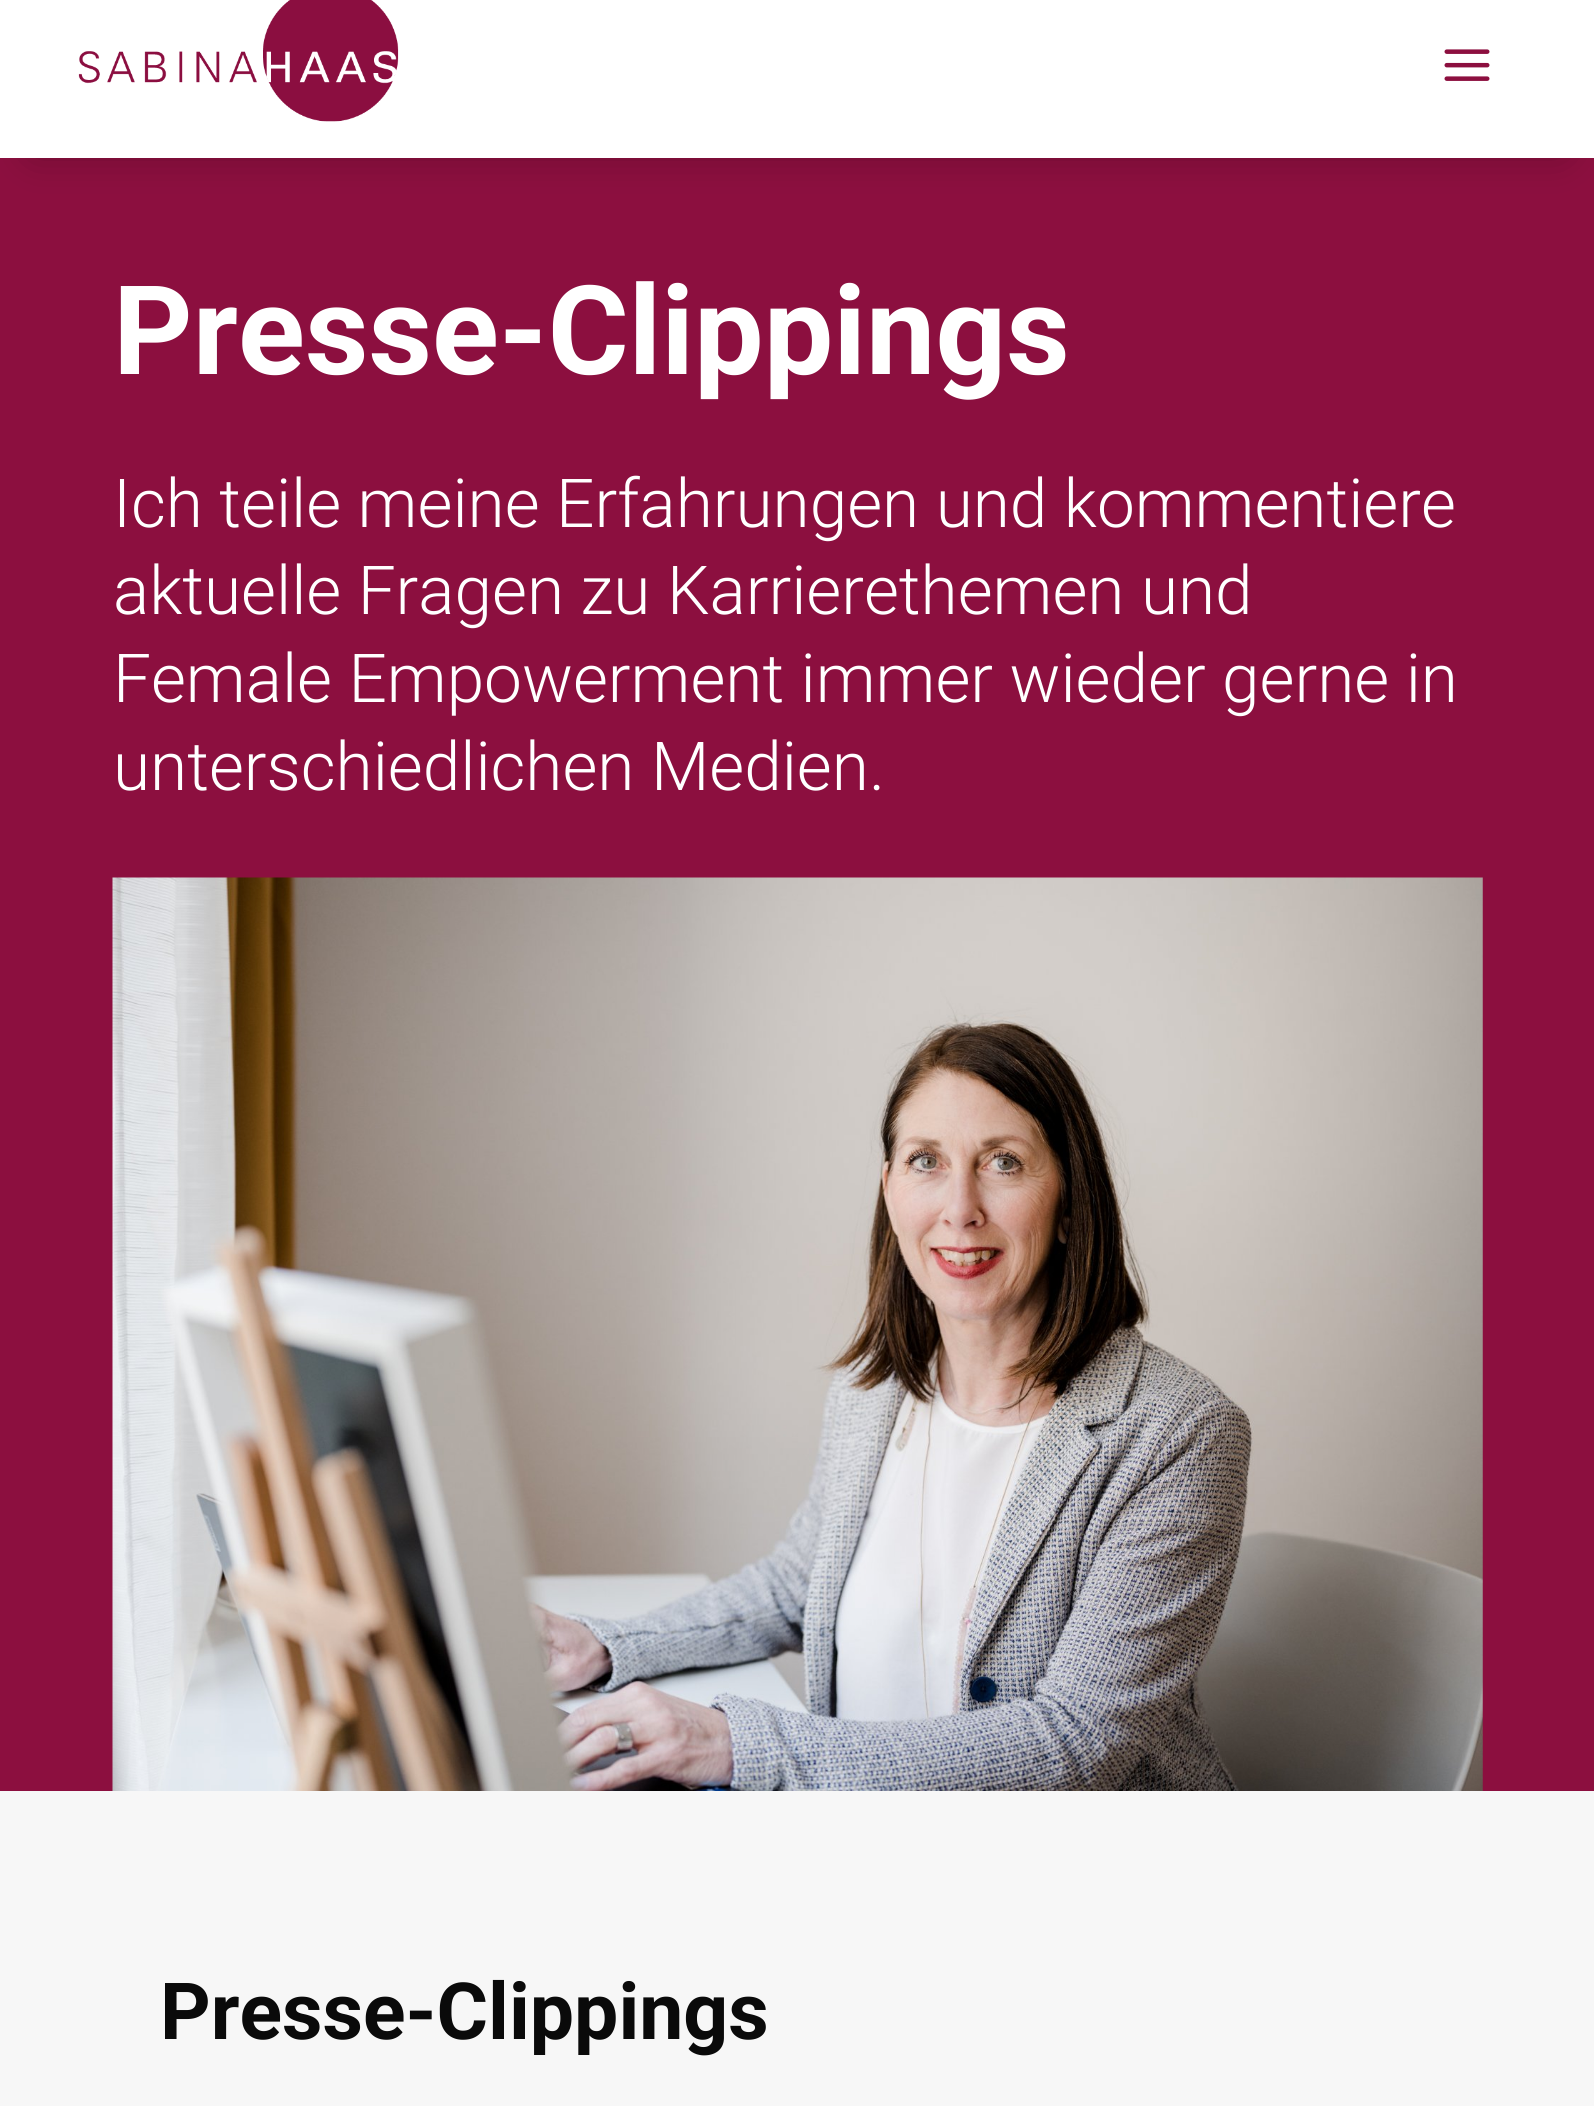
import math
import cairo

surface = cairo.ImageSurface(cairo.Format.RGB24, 1594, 2106)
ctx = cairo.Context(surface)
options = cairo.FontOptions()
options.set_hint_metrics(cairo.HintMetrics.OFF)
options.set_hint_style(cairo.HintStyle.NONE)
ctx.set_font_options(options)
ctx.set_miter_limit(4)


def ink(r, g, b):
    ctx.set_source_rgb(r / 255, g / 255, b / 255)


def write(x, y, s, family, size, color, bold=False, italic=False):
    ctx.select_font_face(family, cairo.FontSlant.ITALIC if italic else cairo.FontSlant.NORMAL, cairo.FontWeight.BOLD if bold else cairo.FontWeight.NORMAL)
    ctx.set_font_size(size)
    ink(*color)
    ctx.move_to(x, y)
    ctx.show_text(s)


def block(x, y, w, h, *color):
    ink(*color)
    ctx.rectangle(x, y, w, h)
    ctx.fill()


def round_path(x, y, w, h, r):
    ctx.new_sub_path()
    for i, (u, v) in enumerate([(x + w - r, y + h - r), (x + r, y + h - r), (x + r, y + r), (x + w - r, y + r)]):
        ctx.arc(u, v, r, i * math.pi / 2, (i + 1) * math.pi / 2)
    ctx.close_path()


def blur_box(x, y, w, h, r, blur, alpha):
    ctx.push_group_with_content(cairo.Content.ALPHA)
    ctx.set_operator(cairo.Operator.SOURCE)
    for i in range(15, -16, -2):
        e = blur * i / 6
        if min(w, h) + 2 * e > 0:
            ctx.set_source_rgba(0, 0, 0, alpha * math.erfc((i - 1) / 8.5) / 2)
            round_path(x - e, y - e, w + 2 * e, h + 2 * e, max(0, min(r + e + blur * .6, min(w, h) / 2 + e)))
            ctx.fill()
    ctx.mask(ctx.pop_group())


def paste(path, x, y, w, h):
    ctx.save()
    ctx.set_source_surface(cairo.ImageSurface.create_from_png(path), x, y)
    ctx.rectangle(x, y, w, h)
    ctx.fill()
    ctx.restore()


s1 = dict(family="Roboto", size=123.75, color=(255, 255, 255), bold=True)
s2 = dict(family="Roboto Light", size=67.5, color=(255, 255, 255))
s3 = dict(family="Roboto", size=78.75, color=(10, 10, 10), bold=True)

ink(140, 15, 63)
ctx.paint()
ink(0, 0, 0)
blur_box(34, 61, 1528, 90, 0, 20, 0.3)
block(0, 0, 1594, 158, 255, 255, 255)
paste("pic1.png", 78, 0, 321, 122)
paste("pic2.png", 1444, 49, 46, 32)
write(113, 374, "Presse-Clippings", **s1)
write(113, 527, "Ich teile meine Erfahrungen und kommentiere", **s2)
write(113, 614, "aktuelle Fragen zu Karrierethemen und", **s2)
write(113, 702, "Female Empowerment immer wieder gerne in", **s2)
write(113, 790, "unterschiedlichen Medien.", **s2)
paste("pic3.png", 112, 877, 1371, 914)
block(0, 1791, 1594, 315, 247, 247, 247)
write(160, 2039, "Presse-Clippings", **s3)
surface.write_to_png("screenshot.png")
